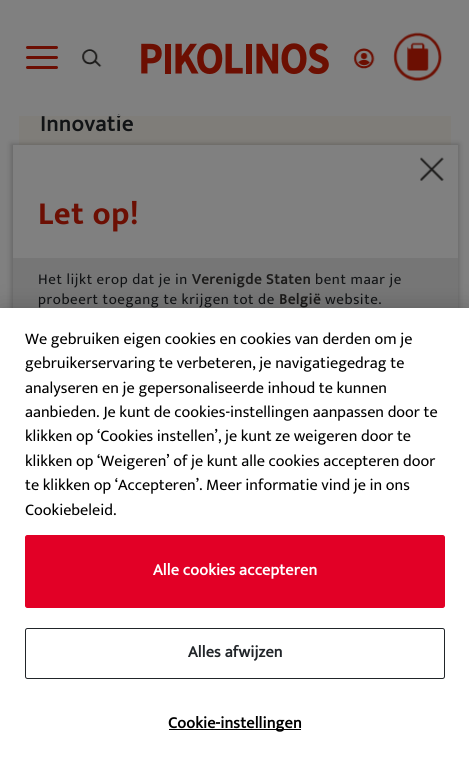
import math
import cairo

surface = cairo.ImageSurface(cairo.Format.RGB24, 469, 768)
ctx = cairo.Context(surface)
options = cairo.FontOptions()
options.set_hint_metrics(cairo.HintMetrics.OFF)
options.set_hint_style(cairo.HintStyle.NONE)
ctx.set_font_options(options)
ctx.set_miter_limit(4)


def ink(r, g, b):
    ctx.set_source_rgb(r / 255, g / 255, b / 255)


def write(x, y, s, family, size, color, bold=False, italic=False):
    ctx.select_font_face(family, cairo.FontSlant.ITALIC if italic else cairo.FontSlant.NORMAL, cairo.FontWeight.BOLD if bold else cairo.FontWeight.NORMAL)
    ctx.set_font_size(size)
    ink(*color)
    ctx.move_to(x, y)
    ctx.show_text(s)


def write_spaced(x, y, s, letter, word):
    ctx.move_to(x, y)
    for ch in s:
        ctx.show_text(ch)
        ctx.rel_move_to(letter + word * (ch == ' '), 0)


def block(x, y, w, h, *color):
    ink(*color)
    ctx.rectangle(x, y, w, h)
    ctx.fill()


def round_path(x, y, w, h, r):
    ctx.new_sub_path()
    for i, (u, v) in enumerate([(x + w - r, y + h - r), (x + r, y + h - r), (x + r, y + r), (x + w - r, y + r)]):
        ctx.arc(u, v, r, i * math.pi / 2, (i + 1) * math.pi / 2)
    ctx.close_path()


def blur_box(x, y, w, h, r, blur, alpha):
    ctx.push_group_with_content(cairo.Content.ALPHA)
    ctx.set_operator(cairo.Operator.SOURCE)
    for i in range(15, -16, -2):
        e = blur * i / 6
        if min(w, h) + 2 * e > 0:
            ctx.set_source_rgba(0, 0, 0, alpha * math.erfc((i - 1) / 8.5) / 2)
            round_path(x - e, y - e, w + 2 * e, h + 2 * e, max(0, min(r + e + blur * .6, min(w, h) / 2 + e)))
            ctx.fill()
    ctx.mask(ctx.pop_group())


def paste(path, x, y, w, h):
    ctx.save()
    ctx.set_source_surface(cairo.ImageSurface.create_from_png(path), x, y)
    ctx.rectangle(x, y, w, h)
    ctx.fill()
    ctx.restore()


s1 = dict(family="Mukta", size=16.25, color=(0, 0, 0))

ink(128, 128, 128)
ctx.paint()
block(19, 116, 432, 29, 127, 125, 121)
ctx.select_font_face("Mukta", cairo.FontSlant.NORMAL, cairo.FontWeight.BOLD)
ctx.set_font_size(22.5)
ink(17, 19, 21)
write_spaced(40, 131, "Innovatie", 0.6, 0)
block(117, 115, 3, 1, 128, 128, 128)
ink(108, 15, 3)
round_path(26, 56, 32, 3, 1.5)
ctx.fill()
round_path(26, 46, 32, 3, 1.5)
ctx.fill()
round_path(26, 66, 32, 3, 1.5)
ctx.fill()
paste("pic1.png", 82, 49, 20, 18)
paste("pic2.png", 141, 43, 188, 32)
paste("pic3.png", 353, 48, 22, 21)
paste("pic4.png", 393, 32, 49, 49)
ink(23, 23, 23)
blur_box(11, 144, 448, 482, 0, 2.5, 0.25)
block(13, 145, 445, 113, 128, 128, 128)
paste("pic5.png", 420, 157, 24, 24)
ctx.select_font_face("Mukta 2", cairo.FontSlant.NORMAL, cairo.FontWeight.BOLD)
ctx.set_font_size(32.5)
ink(108, 15, 3)
write_spaced(38, 224, "Let op!", 0.6, 0)
block(13, 258, 445, 50, 118, 118, 118)
ctx.select_font_face("Mukta")
ctx.set_font_size(15)
ink(17, 19, 21)
write_spaced(38, 284, "Het lijkt erop dat je in", 0.6, 0)
ctx.select_font_face("Mukta", cairo.FontSlant.NORMAL, cairo.FontWeight.BOLD)
ink(27, 26, 25)
write_spaced(192, 284, "Verenigde Staten", 0.6, 0)
ctx.select_font_face("Mukta")
ink(17, 19, 21)
write_spaced(315, 284, "bent maar je", 0.6, 0)
write_spaced(38, 304, "probeert toegang te krijgen tot de", 0.6, 0)
ctx.select_font_face("Mukta", cairo.FontSlant.NORMAL, cairo.FontWeight.BOLD)
ink(27, 26, 25)
write_spaced(279, 304, "België", 0.6, 0)
ctx.select_font_face("Mukta")
ink(17, 19, 21)
write_spaced(325, 304, "website.", 0.6, 0)
ink(0, 0, 0)
blur_box(0, 308, 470, 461, 0, 11, 0.2)
block(0, 308, 469, 460, 255, 255, 255)
write(25, 344, "We gebruiken eigen cookies en cookies van derden om je", **s1)
write(25, 368, "gebruikerservaring te verbeteren, je navigatiegedrag te", **s1)
write(25, 393, "analyseren en je gepersonaliseerde inhoud te kunnen", **s1)
write(25, 417, "aanbieden. Je kunt de cookies-instellingen aanpassen door te", **s1)
write(25, 441, "klikken op ‘Cookies instellen’, je kunt ze weigeren door te", **s1)
write(25, 466, "klikken op ‘Weigeren’ of je kunt alle cookies accepteren door", **s1)
write(25, 490, "te klikken op ‘Accepteren’. Meer informatie vind je in ons", **s1)
write(25, 515, "Cookiebeleid.", **s1)
ink(226, 0, 38)
round_path(25.5, 535.5, 419, 72, 2)
ctx.fill_preserve()
ctx.set_line_width(1)
ctx.stroke()
ctx.select_font_face("Mukta", cairo.FontSlant.NORMAL, cairo.FontWeight.BOLD)
ink(255, 255, 255)
write_spaced(153, 575, "Alle cookies accepteren", 0.2, 0)
round_path(25.5, 628.5, 419, 50, 2)
ink(33, 37, 41)
ctx.stroke()
write_spaced(188, 657, "Alles afwijzen", 0.2, 0)
block(169, 729, 132, 1, 0, 0, 0)
write_spaced(168, 728, "Cookie-instellingen", 0.2, 0)
surface.write_to_png("screenshot.png")
